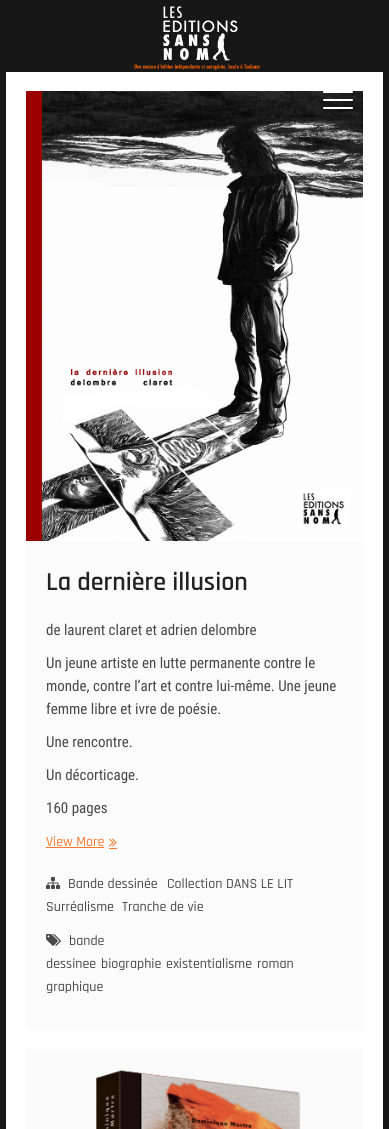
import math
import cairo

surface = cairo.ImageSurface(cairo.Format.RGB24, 389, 1129)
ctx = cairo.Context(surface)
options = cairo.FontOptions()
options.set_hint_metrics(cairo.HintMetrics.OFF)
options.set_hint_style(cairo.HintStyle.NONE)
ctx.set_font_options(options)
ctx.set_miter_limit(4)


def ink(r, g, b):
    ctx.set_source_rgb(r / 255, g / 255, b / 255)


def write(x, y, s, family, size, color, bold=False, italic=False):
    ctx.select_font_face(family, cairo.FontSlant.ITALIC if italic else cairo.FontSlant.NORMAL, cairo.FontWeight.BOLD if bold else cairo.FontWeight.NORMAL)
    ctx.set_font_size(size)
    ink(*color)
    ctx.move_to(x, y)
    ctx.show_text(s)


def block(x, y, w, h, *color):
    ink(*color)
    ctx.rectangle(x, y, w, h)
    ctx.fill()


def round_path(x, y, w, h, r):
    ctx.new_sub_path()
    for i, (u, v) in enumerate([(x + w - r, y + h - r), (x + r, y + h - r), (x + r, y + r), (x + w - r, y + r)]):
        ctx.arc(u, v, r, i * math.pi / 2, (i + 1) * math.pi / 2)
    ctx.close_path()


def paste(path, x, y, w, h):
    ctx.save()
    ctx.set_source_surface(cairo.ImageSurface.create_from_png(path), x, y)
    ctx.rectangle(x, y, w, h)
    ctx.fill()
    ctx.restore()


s1 = dict(family="Rajdhani SemiBold", size=26, color=(34, 34, 34))
s2 = dict(family="Roboto Condensed", size=15, color=(72, 72, 72))
s3 = dict(family="Rajdhani Medium", size=14, color=(247, 120, 46))
s4 = dict(family="Rajdhani Medium", size=14, color=(72, 72, 72))

ink(23, 23, 23)
ctx.paint()
block(6, 72, 377, 1057, 255, 255, 255)
paste("pic1.png", 6, 0, 377, 72)
paste("pic2.png", 26, 91, 337, 450)
round_path(323, 99, 30, 2, 1)
ctx.fill()
round_path(323, 91, 30, 2, 1)
ctx.fill()
round_path(323, 107, 30, 2, 1)
ctx.fill()
block(26, 541, 337, 489, 251, 251, 251)
write(46, 590, "La dernière illusion", **s1)
write(46, 635, "de laurent claret et adrien delombre", **s2)
write(46, 668, "Un jeune artiste en lutte permanente contre le", **s2)
write(46, 691, "monde, contre l’art et contre lui-même. Une jeune", **s2)
write(46, 714, "femme libre et ivre de poésie.", **s2)
write(46, 747, "Une rencontre.", **s2)
write(46, 780, "Un décorticage.", **s2)
write(46, 813, "160 pages", **s2)
write(46, 846, "View More", **s3)
block(46, 847, 58, 1, 247, 120, 46)
paste("pic3.png", 109, 838, 8, 9)
block(109, 848, 8, 1, 247, 120, 46)
paste("pic4.png", 46, 877, 14, 12)
write(68, 888, "Bande dessinée", **s4)
write(167, 888, "Collection DANS LE LIT", **s4)
write(46, 911, "Surréalisme", **s4)
write(122, 911, "Tranche de vie", **s4)
paste("pic5.png", 46, 934, 15, 12)
write(69, 945, "bande", **s4)
write(46, 968, "dessinee", **s4)
write(101, 968, "biographie", **s4)
write(166, 968, "existentialisme", **s4)
write(257, 968, "roman", **s4)
write(46, 991, "graphique", **s4)
block(26, 1049, 337, 80, 250, 250, 250)
paste("pic6.png", 96, 1070, 205, 59)
surface.write_to_png("screenshot.png")
